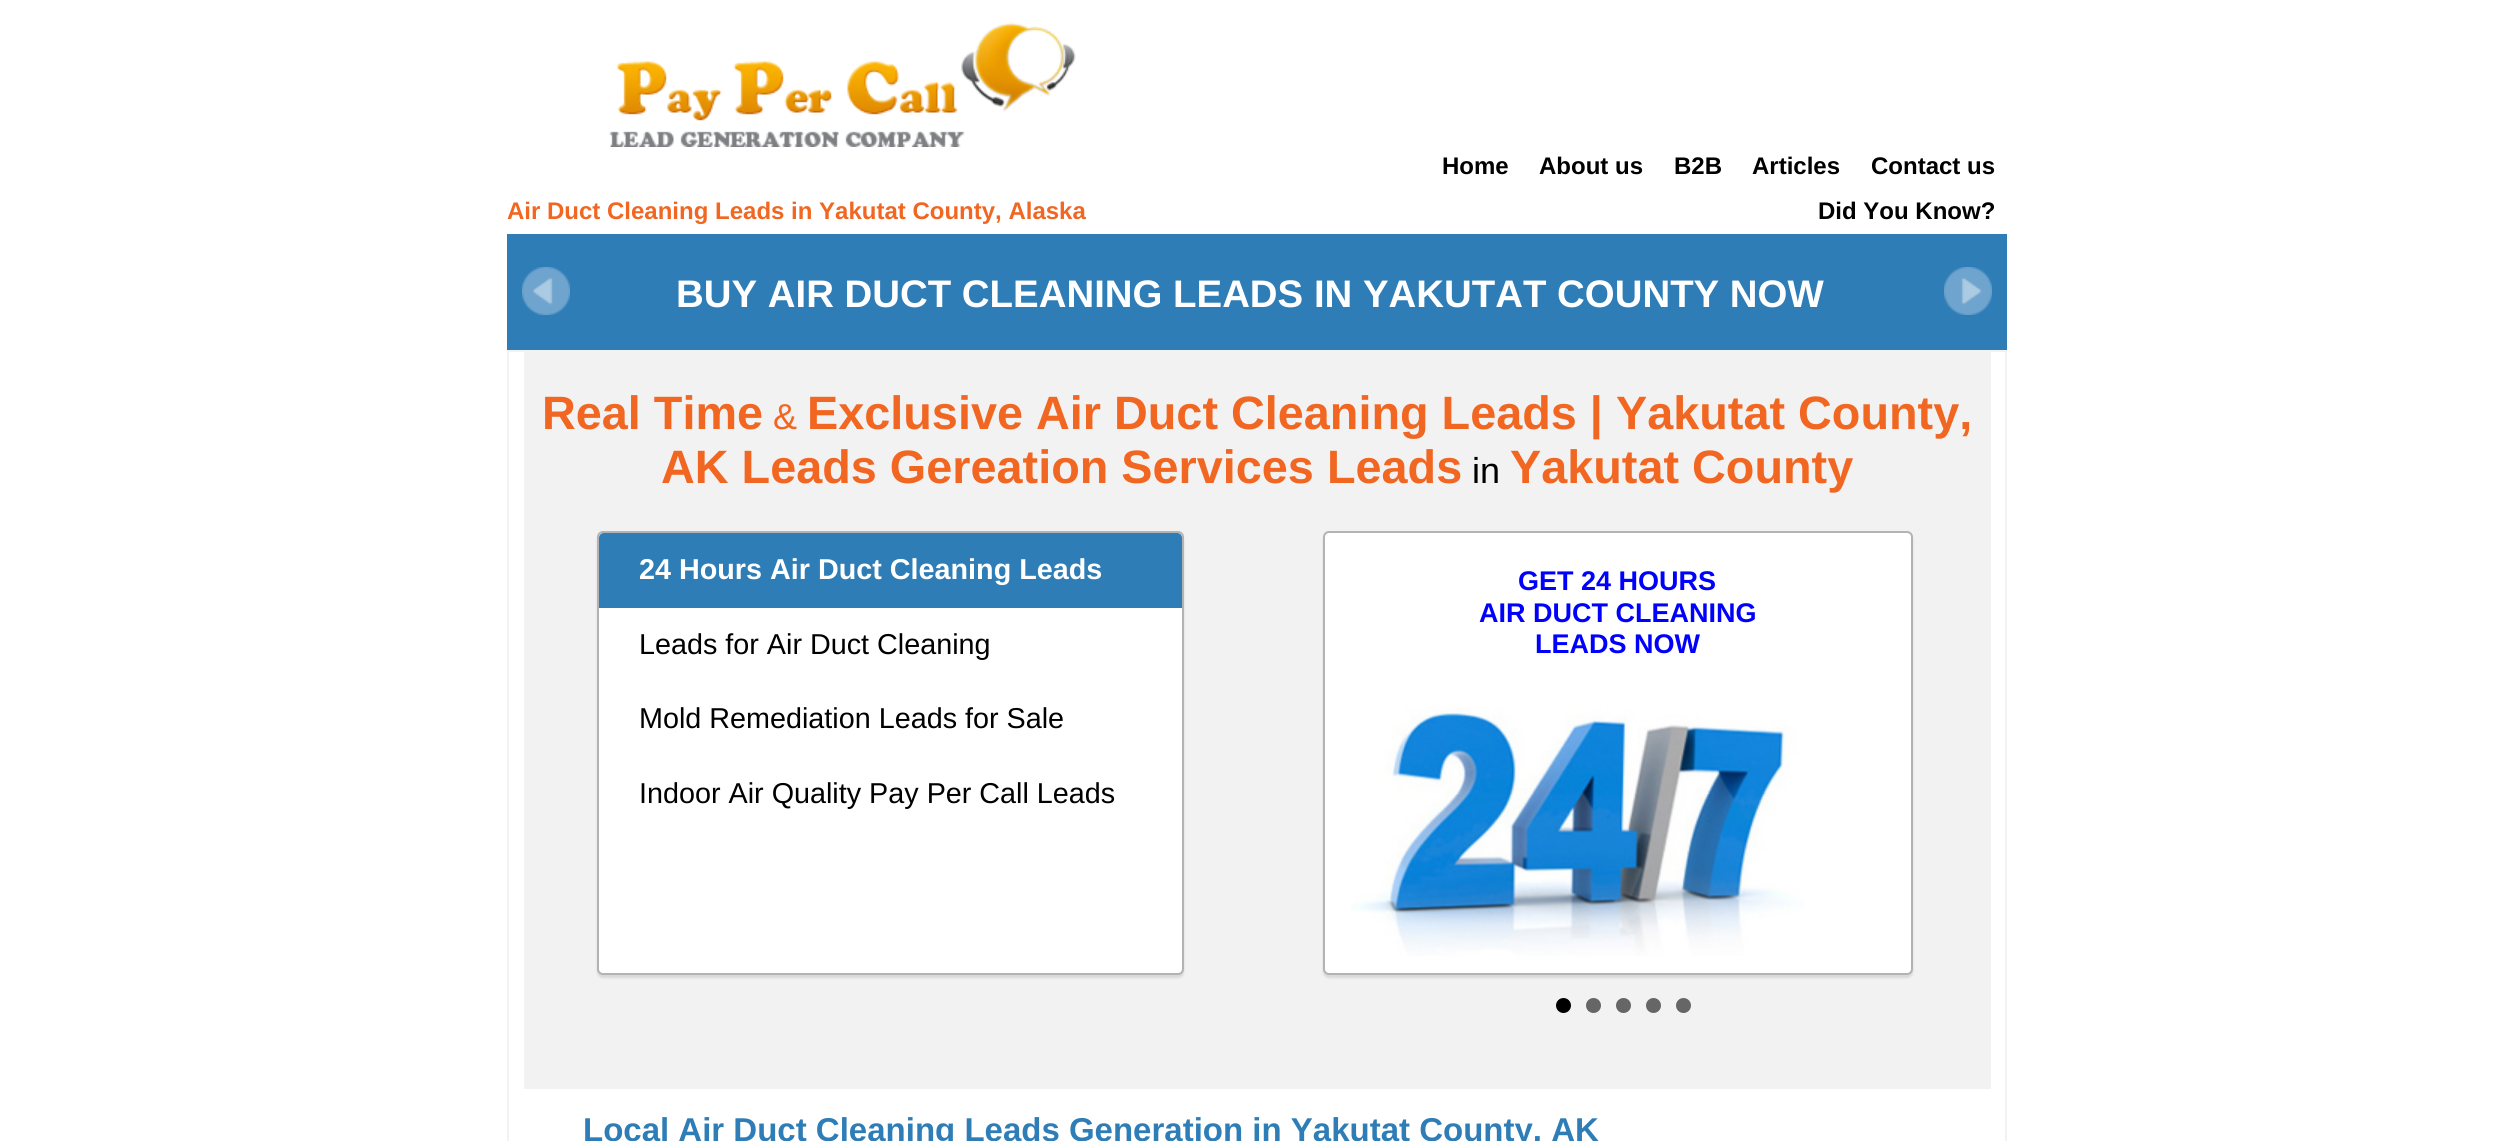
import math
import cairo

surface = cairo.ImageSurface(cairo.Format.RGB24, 2514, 1141)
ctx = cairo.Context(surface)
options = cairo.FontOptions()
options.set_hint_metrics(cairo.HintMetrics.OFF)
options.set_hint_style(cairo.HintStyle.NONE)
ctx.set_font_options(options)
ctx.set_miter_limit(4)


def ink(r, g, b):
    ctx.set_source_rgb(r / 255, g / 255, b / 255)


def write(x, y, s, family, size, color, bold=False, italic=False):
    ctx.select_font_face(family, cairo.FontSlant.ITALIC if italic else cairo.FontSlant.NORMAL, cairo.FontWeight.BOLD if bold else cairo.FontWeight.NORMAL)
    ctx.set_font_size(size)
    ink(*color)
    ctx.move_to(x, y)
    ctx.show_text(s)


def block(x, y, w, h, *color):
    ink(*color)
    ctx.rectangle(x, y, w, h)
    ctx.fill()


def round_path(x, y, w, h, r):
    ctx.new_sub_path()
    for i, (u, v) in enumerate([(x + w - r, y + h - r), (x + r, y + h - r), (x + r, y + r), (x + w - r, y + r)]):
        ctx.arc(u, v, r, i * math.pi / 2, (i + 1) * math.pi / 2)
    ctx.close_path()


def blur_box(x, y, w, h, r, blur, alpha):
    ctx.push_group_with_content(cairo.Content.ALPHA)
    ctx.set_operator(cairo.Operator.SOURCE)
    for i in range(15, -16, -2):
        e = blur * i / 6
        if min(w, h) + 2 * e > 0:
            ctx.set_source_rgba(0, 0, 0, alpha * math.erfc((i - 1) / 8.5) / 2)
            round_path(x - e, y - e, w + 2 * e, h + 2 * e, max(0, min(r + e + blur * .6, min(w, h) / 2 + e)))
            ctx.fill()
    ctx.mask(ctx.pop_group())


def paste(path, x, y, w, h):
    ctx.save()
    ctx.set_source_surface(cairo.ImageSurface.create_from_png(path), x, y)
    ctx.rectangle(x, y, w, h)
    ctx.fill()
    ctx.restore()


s1 = dict(family="Liberation Sans", size=24, color=(0, 0, 0), bold=True)
s2 = dict(family="Liberation Sans", size=24, color=(241, 103, 34), bold=True)
s3 = dict(family="Liberation Sans", size=38.4, color=(255, 255, 255), bold=True)
s4 = dict(family="Liberation Sans", size=46.8, color=(241, 103, 34), bold=True)
s5 = dict(family="Liberation Sans", size=36, color=(241, 103, 34))
s6 = dict(family="Liberation Sans", size=36, color=(0, 0, 0))
s7 = dict(family="Liberation Sans", size=28.75, color=(255, 255, 255), bold=True)
s8 = dict(family="Liberation Sans", size=28.75, color=(0, 0, 0))
s9 = dict(family="Liberation Sans", size=27, color=(0, 0, 255), bold=True)
s10 = dict(family="Liberation Sans", size=33, color=(46, 125, 182), bold=True)

ink(255, 255, 255)
ctx.paint()
paste("pic1.png", 609, 22, 467, 125)
write(1442, 174, "Home", **s1)
write(1539, 174, "About us", **s1)
write(1674, 174, "B2B", **s1)
write(1752, 174, "Articles", **s1)
write(1871, 174, "Contact us", **s1)
write(507, 219, "Air Duct Cleaning Leads in Yakutat County, Alaska", **s2)
write(1818, 219, "Did You Know?", **s1)
block(507, 234, 1500, 116, 46, 125, 182)
paste("pic2.png", 522, 267, 48, 48)
paste("pic3.png", 1944, 267, 48, 48)
write(676, 307, "BUY AIR DUCT CLEANING LEADS IN YAKUTAT COUNTY NOW", **s3)
ctx.rectangle(508, 351, 1498, 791)
ink(242, 242, 242)
ctx.stroke()
block(524, 352, 1467, 737, 242, 242, 242)
write(542, 429, "Real Time", **s4)
write(773, 429, "&", **s5)
write(807, 429, "Exclusive Air Duct Cleaning Leads | Yakutat County,", **s4)
write(661, 483, "AK Leads Gereation Services Leads", **s4)
write(1472, 483, "in", **s6)
write(1510, 483, "Yakutat County", **s4)
ink(217, 217, 217)
blur_box(597, 534, 587, 444, 6, 1, 1)
ink(255, 255, 255)
round_path(598, 532, 585, 442, 5)
ctx.fill_preserve()
ink(179, 179, 179)
ctx.stroke()
ink(46, 125, 182)
ctx.new_path()
ctx.move_to(604, 533)
ctx.line_to(1177, 533)
ctx.curve_to(1180, 533, 1182, 535, 1182, 538)
ctx.line_to(1182, 608)
ctx.line_to(599, 608)
ctx.line_to(599, 538)
ctx.curve_to(599, 535, 601, 533, 604, 533)
ctx.close_path()
ctx.fill()
write(639, 579, "24 Hours Air Duct Cleaning Leads", **s7)
write(639, 654, "Leads for Air Duct Cleaning", **s8)
write(639, 728, "Mold Remediation Leads for Sale", **s8)
write(639, 803, "Indoor Air Quality Pay Per Call Leads", **s8)
ink(217, 217, 217)
blur_box(1323, 534, 590, 444, 6, 1, 1)
ink(255, 255, 255)
round_path(1324, 532, 588, 442, 5)
ctx.fill_preserve()
ink(179, 179, 179)
ctx.stroke()
paste("pic4.png", 1351, 706, 453, 250)
write(1518, 590, "GET 24 HOURS", **s9)
write(1479, 622, "AIR DUCT CLEANING", **s9)
write(1535, 653, "LEADS NOW", **s9)
ink(0, 0, 0)
ctx.new_path()
ctx.arc(1563.5, 1005.5, 7.5, 0, 2 * math.pi)
ctx.fill()
ink(102, 102, 102)
ctx.arc(1593.5, 1005.5, 7.5, 0, 2 * math.pi)
ctx.fill()
ctx.arc(1623.5, 1005.5, 7.5, 0, 2 * math.pi)
ctx.fill()
ctx.arc(1653.5, 1005.5, 7.5, 0, 2 * math.pi)
ctx.fill()
ctx.arc(1683.5, 1005.5, 7.5, 0, 2 * math.pi)
ctx.fill()
write(583, 1141, "Local Air Duct Cleaning Leads Generation in Yakutat County, AK", **s10)
surface.write_to_png("screenshot.png")
